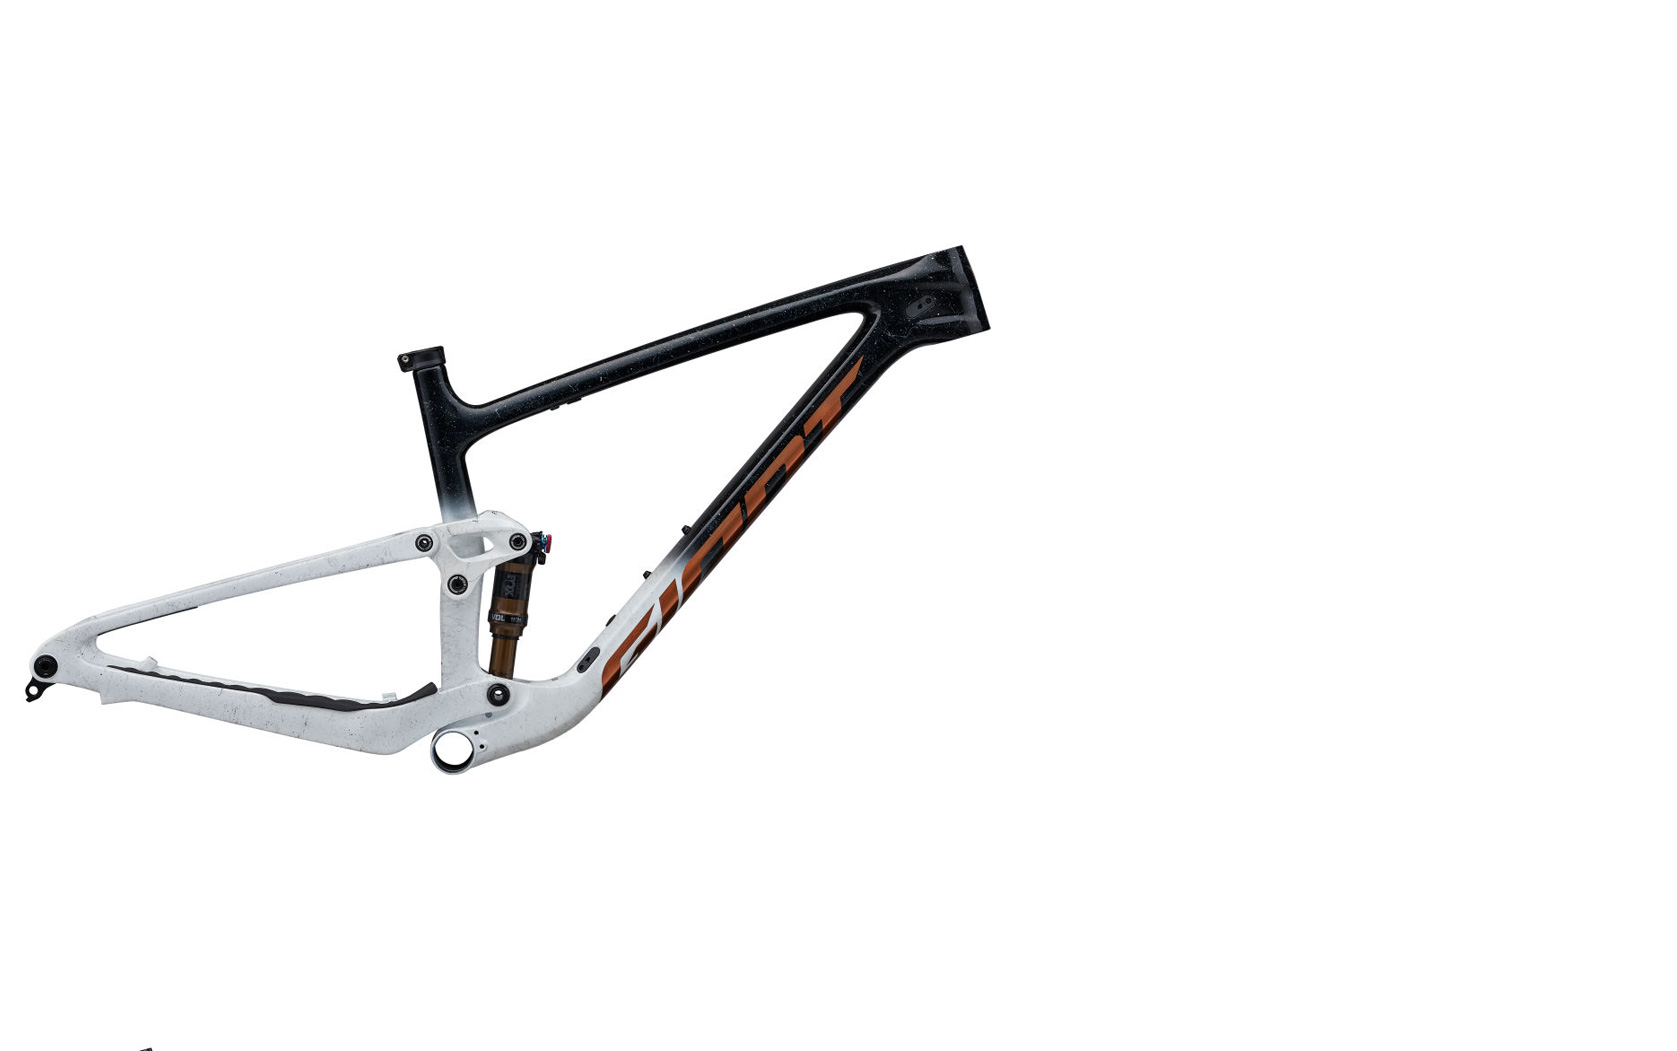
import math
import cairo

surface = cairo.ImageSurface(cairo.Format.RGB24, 1677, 1051)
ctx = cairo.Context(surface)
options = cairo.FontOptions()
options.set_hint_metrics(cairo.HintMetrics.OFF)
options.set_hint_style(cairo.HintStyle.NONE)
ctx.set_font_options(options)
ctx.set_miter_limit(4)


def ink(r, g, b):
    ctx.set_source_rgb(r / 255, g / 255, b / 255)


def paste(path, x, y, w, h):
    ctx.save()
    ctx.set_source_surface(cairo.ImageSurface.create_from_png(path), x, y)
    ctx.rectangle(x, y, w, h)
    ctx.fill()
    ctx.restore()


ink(255, 255, 255)
ctx.paint()
paste("pic1.png", 22, 243, 970, 533)
paste("pic2.png", 133, 1044, 25, 7)
surface.write_to_png("screenshot.png")
